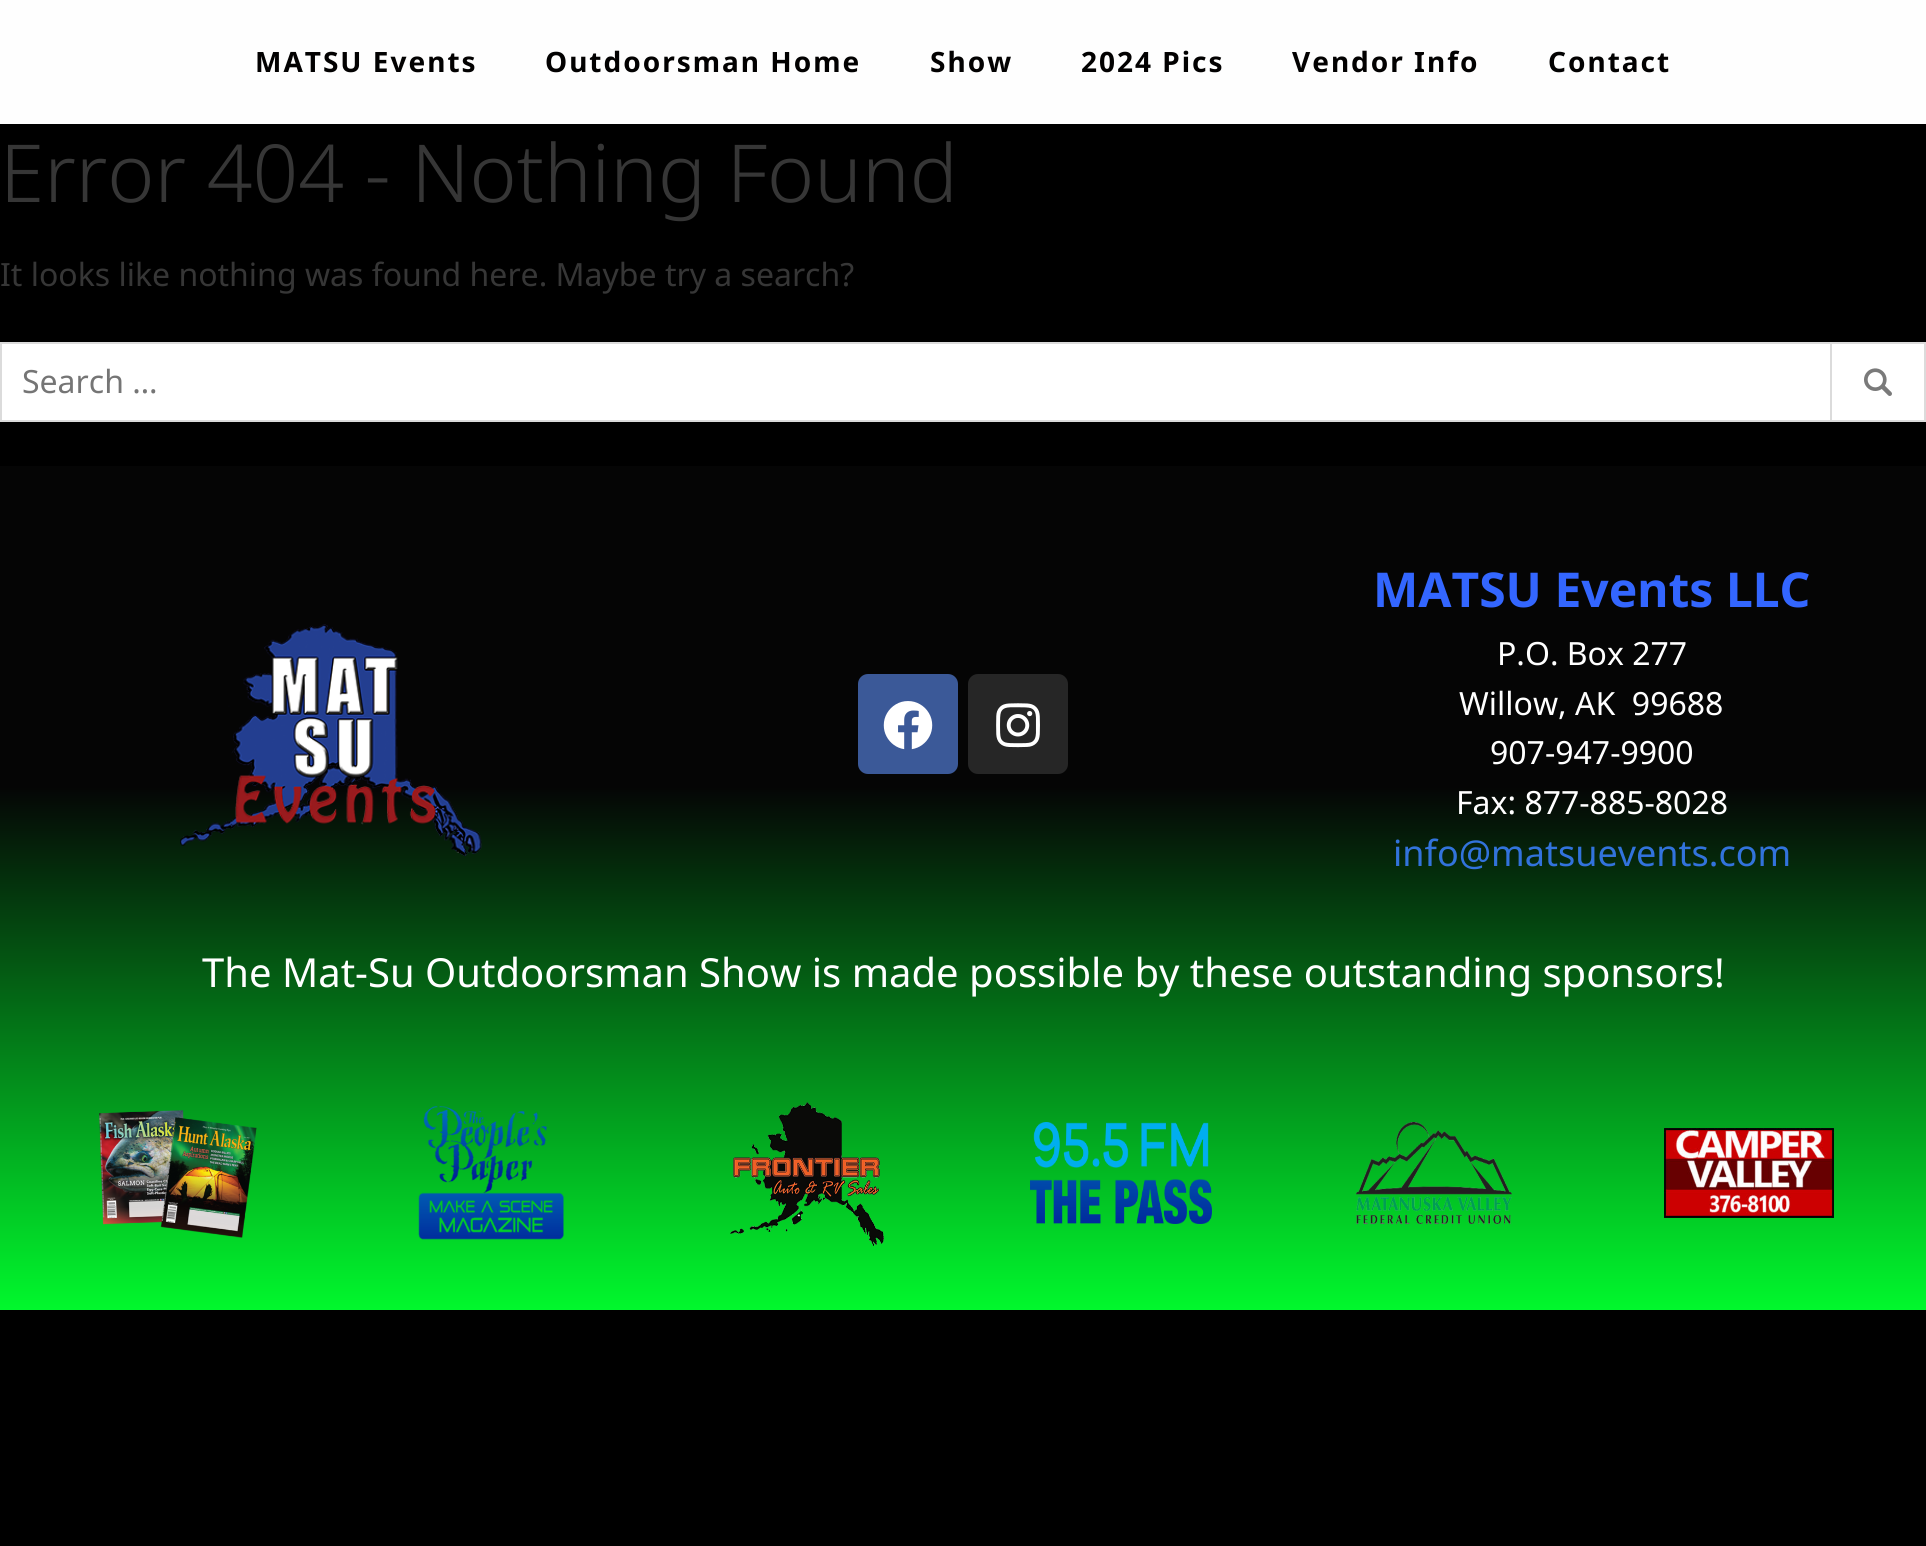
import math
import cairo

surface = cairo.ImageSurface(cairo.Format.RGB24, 1926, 1546)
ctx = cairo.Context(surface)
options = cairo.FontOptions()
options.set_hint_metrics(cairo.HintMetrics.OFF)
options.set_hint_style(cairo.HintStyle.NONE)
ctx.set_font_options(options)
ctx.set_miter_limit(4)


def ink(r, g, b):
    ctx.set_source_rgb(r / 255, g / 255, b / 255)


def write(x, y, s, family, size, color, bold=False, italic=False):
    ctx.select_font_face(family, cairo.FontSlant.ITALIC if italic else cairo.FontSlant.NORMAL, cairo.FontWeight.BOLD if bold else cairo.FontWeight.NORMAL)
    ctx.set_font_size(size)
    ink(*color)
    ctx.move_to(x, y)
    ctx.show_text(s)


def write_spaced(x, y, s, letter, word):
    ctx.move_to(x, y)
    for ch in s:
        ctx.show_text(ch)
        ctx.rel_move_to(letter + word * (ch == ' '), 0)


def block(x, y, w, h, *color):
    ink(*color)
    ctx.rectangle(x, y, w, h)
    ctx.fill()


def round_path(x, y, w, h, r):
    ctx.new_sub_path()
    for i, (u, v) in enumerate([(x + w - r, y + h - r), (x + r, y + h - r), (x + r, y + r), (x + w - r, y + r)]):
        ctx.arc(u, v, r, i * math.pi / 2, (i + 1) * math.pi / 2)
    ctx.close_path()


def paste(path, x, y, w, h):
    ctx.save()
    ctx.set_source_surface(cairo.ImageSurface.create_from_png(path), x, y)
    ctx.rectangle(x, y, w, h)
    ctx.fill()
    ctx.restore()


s1 = dict(family="Noto Sans Light", size=80, color=(54, 54, 54))
s2 = dict(family="Noto Sans", size=32, color=(54, 54, 54))
s3 = dict(family="Noto Sans", size=32, color=(117, 117, 117))
s4 = dict(family="Noto Sans", size=48, color=(51, 102, 255), bold=True)
s5 = dict(family="Noto Sans", size=32, color=(255, 255, 255))
s6 = dict(family="Noto Sans", size=36, color=(50, 115, 220))
s7 = dict(family="Noto Sans", size=40, color=(255, 255, 255))

ink(0, 0, 0)
ctx.paint()
block(0, 0, 1926, 124, 254, 254, 254)
ctx.select_font_face("Noto Sans", cairo.FontSlant.NORMAL, cairo.FontWeight.BOLD)
ctx.set_font_size(28)
ink(2, 1, 1)
write_spaced(255, 72, "MATSU Events", 2, 0)
write_spaced(545, 72, "Outdoorsman Home", 2, 0)
write_spaced(930, 72, "Show", 2, 0)
write_spaced(1081, 72, "2024 Pics", 2, 0)
write_spaced(1292, 72, "Vendor Info", 2, 0)
write_spaced(1548, 72, "Contact", 2, 0)
write(0, 202, "Error 404 - Nothing Found", **s1)
write(0, 286, "It looks like nothing was found here. Maybe try a search?", **s2)
block(2, 344, 1828, 76, 255, 255, 255)
ctx.rectangle(1, 343, 1924, 78)
ink(219, 219, 219)
ctx.stroke()
write(22, 393, "Search …", **s3)
ink(255, 255, 255)
ctx.rectangle(1831, 343, 94, 78)
ctx.fill_preserve()
ink(219, 219, 219)
ctx.stroke()
paste("pic1.png", 1864, 368, 28, 28)
gradient = cairo.LinearGradient(963, 466, 963, 1310)
gradient.add_color_stop_rgba(0.38, 0.02, 0.02, 0.02, 1)
gradient.add_color_stop_rgba(1, 0.004, 0.973, 0.176, 1)
ctx.set_source(gradient)
ctx.rectangle(0, 466, 1926, 844)
ctx.fill()
paste("pic2.png", 180, 624, 302, 232)
ink(59, 89, 152)
round_path(858, 674, 100, 100, 10)
ctx.fill()
paste("pic3.png", 883, 701, 50, 49)
ink(38, 38, 38)
round_path(968, 674, 100, 100, 10)
ctx.fill()
paste("pic4.png", 996, 703, 44, 45)
write(1373, 607, "MATSU Events LLC", **s4)
write(1497, 665, "P.O. Box 277", **s5)
write(1459, 715, "Willow, AK  99688", **s5)
write(1490, 764, "907-947-9900", **s5)
write(1456, 814, "Fax: 877-885-8028", **s5)
write(1393, 866, "info@matsuevents.com", **s6)
write(202, 987, "The Mat-Su Outdoorsman Show is made possible by these outstanding sponsors!", **s7)
paste("pic5.png", 99, 1110, 158, 128)
paste("pic6.png", 418, 1106, 146, 134)
paste("pic7.png", 730, 1102, 154, 144)
paste("pic8.png", 1030, 1122, 182, 102)
paste("pic9.png", 1356, 1122, 156, 102)
paste("pic10.png", 1664, 1128, 170, 90)
surface.write_to_png("screenshot.png")
